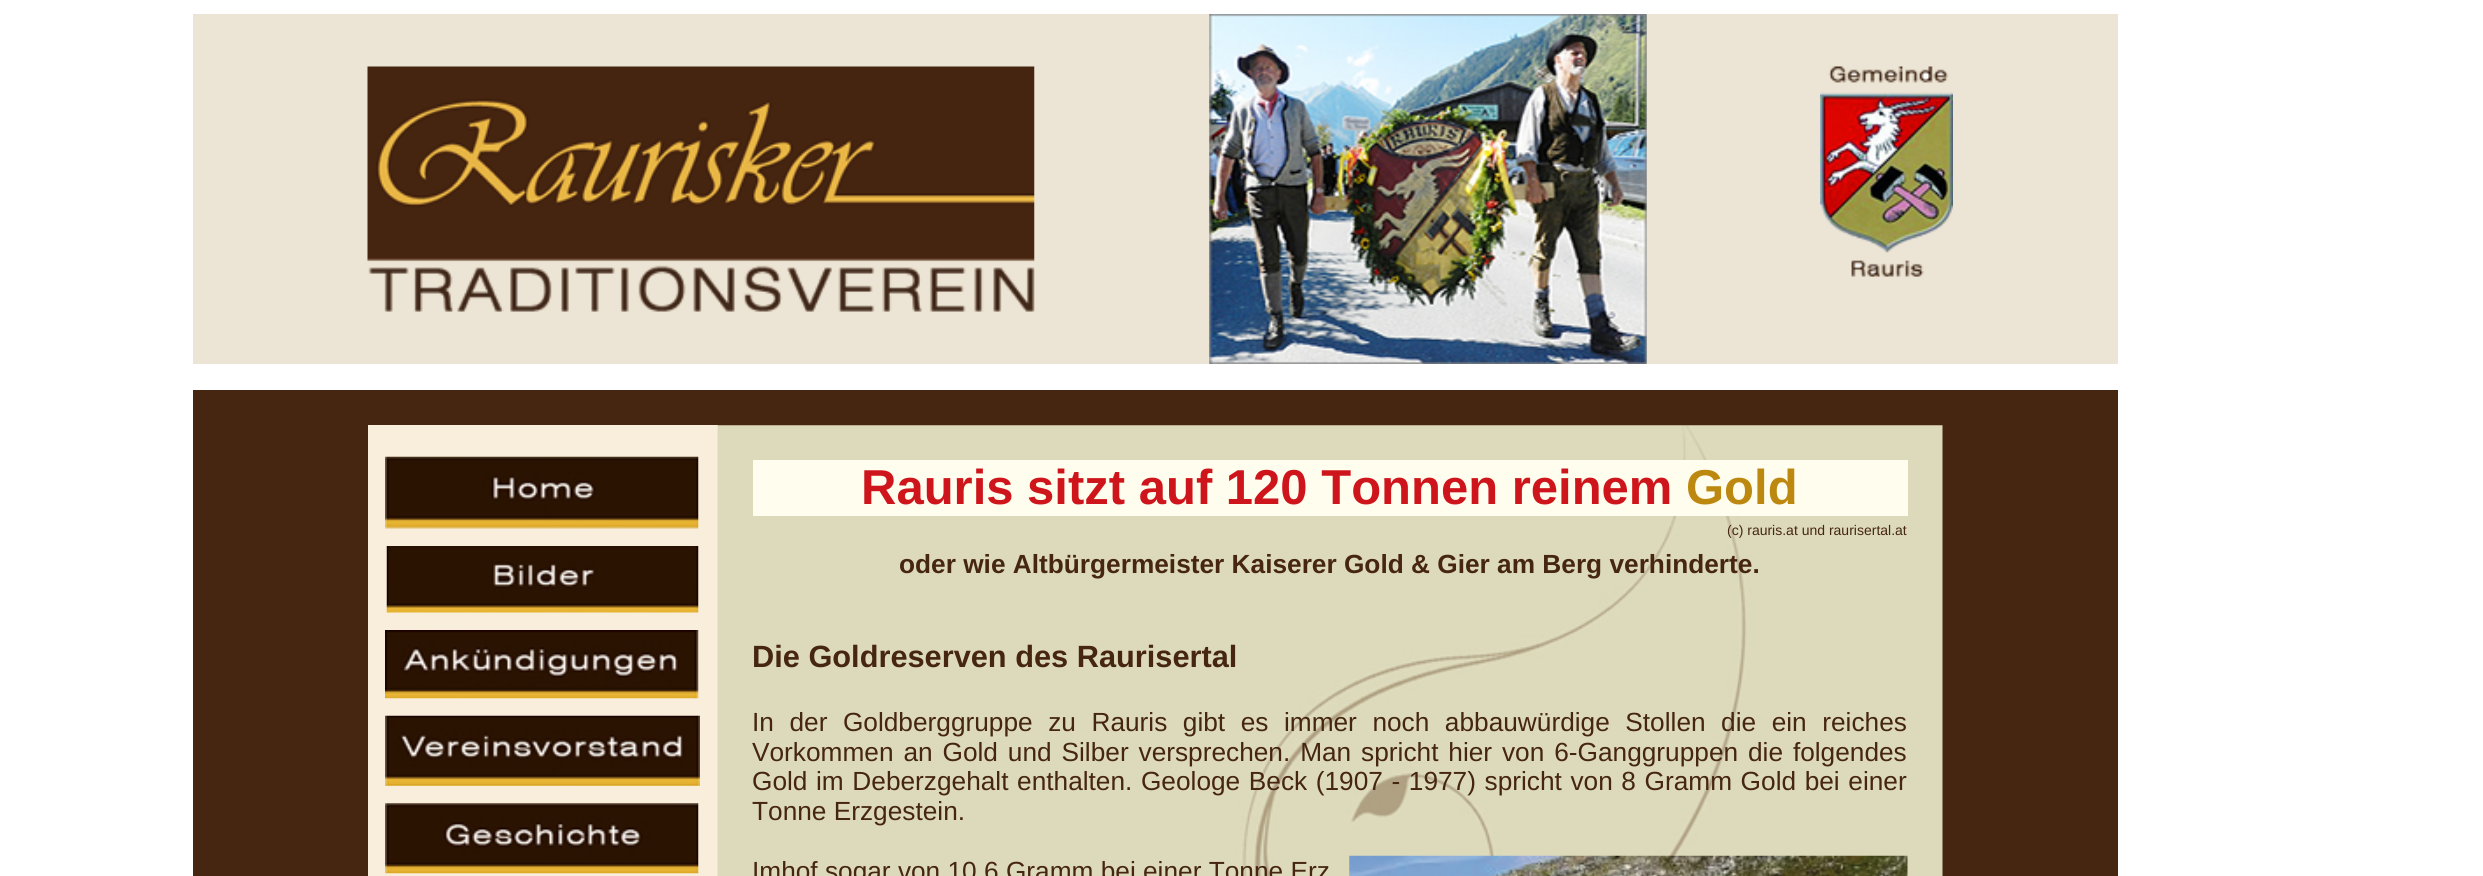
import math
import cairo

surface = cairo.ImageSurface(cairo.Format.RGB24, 2483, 876)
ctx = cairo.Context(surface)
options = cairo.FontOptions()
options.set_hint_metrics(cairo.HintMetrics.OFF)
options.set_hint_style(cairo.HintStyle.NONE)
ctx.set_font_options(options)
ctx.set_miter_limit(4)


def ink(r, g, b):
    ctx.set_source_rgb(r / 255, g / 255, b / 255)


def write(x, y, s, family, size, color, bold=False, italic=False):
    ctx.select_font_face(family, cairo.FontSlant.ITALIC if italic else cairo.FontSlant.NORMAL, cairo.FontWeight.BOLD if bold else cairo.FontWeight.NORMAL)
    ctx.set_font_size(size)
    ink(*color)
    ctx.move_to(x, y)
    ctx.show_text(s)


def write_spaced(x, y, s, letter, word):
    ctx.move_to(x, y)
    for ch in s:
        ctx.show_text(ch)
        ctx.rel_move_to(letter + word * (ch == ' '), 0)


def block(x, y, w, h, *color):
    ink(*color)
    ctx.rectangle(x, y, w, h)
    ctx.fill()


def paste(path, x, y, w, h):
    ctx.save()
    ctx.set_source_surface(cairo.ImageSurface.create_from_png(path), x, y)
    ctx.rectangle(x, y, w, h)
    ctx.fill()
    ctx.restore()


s1 = dict(family="Liberation Sans", size=49, color=(207, 21, 28), bold=True)
s2 = dict(family="Liberation Sans", size=49, color=(189, 136, 16), bold=True)
s3 = dict(family="Liberation Sans", size=14, color=(70, 38, 16))
s4 = dict(family="Liberation Sans", size=26.25, color=(70, 38, 16), bold=True)
s5 = dict(family="Liberation Sans", size=30.75, color=(70, 38, 16), bold=True)
s6 = dict(family="Liberation Sans", size=26.25, color=(70, 38, 16))

ink(255, 255, 255)
ctx.paint()
block(193, 14, 1925, 350, 236, 228, 212)
paste("pic1.png", 367, 66, 668, 246)
paste("pic2.png", 1209, 14, 438, 350)
paste("pic3.png", 1820, 66, 133, 211)
block(193, 390, 1925, 486, 70, 38, 16)
block(368, 425, 350, 451, 248, 238, 219)
paste("pic4.png", 385, 456, 314, 73)
paste("pic5.png", 386, 546, 313, 67)
paste("pic6.png", 385, 630, 314, 69)
paste("pic7.png", 385, 715, 315, 71)
paste("pic8.png", 385, 803, 314, 71)
paste("pic9.png", 717, 425, 1226, 451)
block(753, 460, 1155, 56, 255, 253, 238)
write(861, 504, "Rauris sitzt auf 120 Tonnen reinem", **s1)
write(1686, 504, "Gold", **s2)
write(1727, 535, "(c) rauris.at und raurisertal.at", **s3)
write(899, 573, "oder wie Altbürgermeister Kaiserer Gold & Gier am Berg verhinderte.", **s4)
write(752, 667, "Die Goldreserven des Raurisertal", **s5)
ctx.select_font_face("Liberation Sans")
ctx.set_font_size(26.25)
write_spaced(752, 731, "In der Goldberggruppe zu Rauris gibt es immer noch abbauwürdige Stollen die ein reiches", 0, 8.25)
write_spaced(752, 761, "Vorkommen an Gold und Silber versprechen. Man spricht hier von 6-Ganggruppen die folgendes", 0, 2.6)
write_spaced(752, 790, "Gold im Deberzgehalt enthalten. Geologe Beck (1907 - 1977) spricht von 8 Gramm Gold bei einer", 0, 1.3)
write(752, 820, "Tonne Erzgestein.", **s6)
write(752, 880, "Imhof sogar von 10,6 Gramm bei einer Tonne Erz", **s6)
paste("pic10.png", 1349, 855, 559, 21)
surface.write_to_png("screenshot.png")
